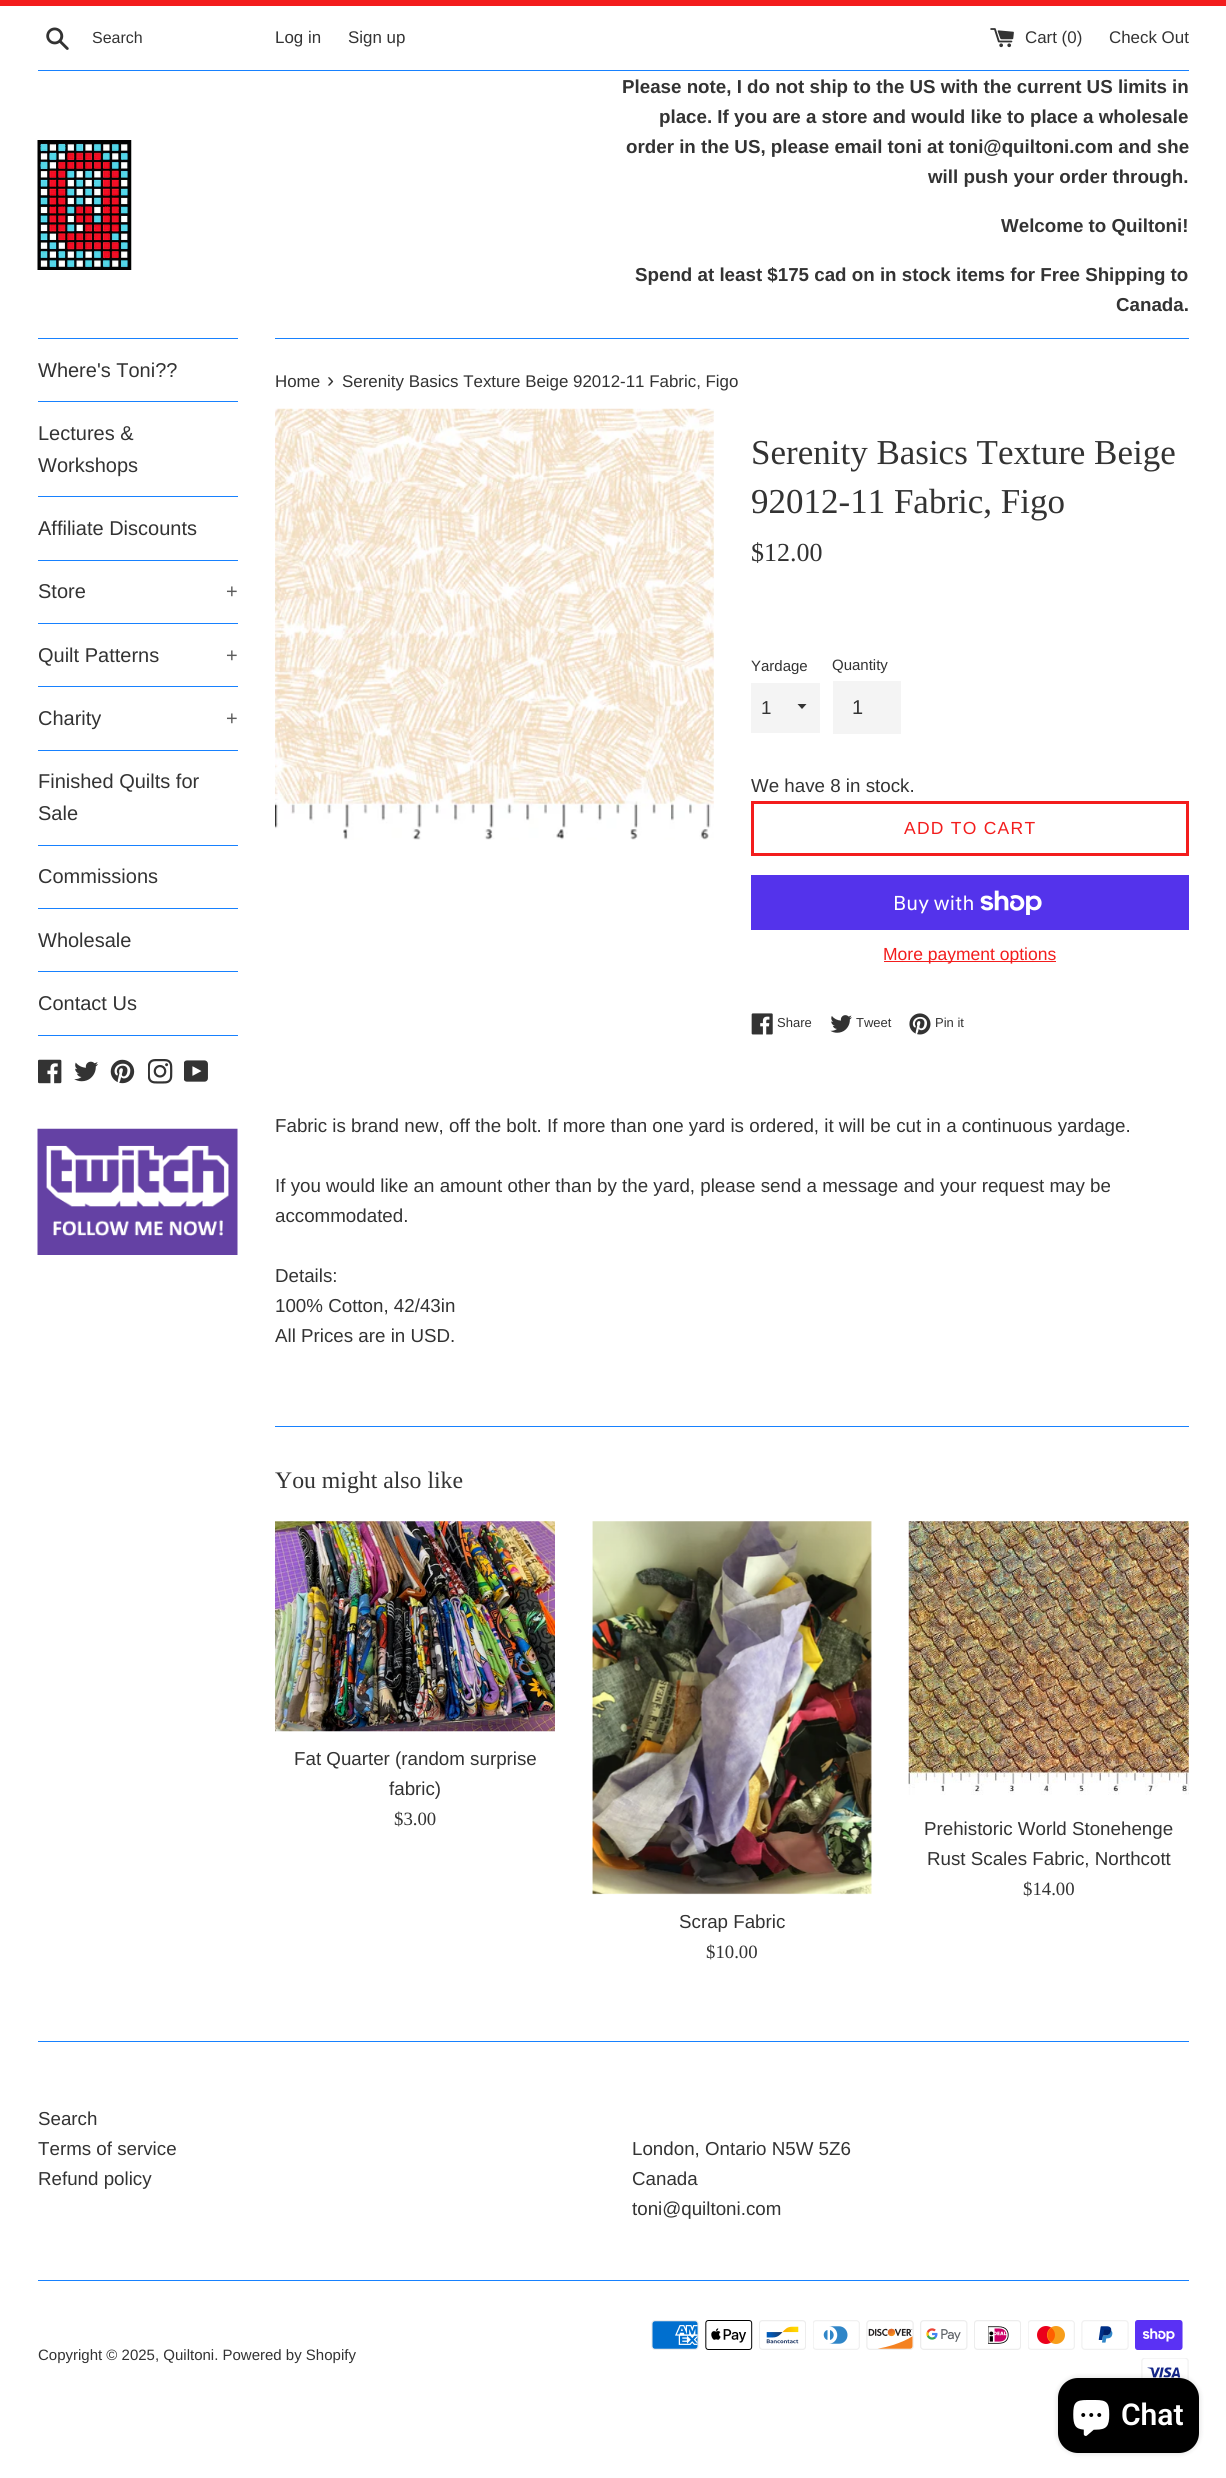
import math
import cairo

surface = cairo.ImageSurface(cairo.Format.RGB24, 1226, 2478)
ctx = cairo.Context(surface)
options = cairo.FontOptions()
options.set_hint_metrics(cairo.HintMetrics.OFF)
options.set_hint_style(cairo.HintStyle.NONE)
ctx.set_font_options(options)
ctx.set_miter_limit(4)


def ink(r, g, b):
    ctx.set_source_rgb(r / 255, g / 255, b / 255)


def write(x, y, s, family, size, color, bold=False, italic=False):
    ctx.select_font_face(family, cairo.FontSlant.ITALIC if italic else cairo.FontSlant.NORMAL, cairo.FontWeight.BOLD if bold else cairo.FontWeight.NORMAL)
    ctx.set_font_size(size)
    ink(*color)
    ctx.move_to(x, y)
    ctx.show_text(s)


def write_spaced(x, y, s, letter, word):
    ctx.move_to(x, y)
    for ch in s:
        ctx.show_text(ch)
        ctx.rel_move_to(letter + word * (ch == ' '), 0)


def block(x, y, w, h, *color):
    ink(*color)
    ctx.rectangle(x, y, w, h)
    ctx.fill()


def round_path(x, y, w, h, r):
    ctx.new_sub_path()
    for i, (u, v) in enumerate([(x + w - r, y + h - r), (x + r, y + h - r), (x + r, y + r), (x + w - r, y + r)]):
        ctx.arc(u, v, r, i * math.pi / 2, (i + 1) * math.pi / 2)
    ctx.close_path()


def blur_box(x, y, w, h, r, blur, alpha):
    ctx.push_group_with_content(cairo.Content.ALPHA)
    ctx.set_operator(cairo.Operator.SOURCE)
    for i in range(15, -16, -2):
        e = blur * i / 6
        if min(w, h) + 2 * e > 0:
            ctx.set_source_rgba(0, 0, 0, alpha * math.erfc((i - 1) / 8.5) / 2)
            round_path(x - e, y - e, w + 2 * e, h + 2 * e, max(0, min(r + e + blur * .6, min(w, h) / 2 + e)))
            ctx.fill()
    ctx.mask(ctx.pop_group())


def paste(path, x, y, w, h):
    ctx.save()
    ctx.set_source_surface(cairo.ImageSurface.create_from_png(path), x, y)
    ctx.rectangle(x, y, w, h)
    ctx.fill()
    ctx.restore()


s1 = dict(family="Liberation Sans", size=16, color=(51, 51, 51))
s2 = dict(family="Liberation Sans", size=16.9, color=(51, 51, 51))
s3 = dict(family="Liberation Sans", size=18.75, color=(51, 51, 51), bold=True)
s4 = dict(family="Liberation Sans", size=20, color=(51, 51, 51))
s5 = dict(family="Liberation Sans", size=20, color=(92, 92, 92))
s6 = dict(family="Liberation Sans", size=21, color=(51, 51, 51))
s7 = dict(family="Liberation Serif", size=35, color=(51, 51, 51))
s8 = dict(family="Liberation Serif", size=26, color=(51, 51, 51))
s9 = dict(family="Liberation Sans", size=15, color=(51, 51, 51))
s10 = dict(family="Liberation Sans", size=18.75, color=(51, 51, 51))
s11 = dict(family="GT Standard", size=20, color=(255, 255, 255))
s12 = dict(family="Liberation Sans", size=17.5, color=(243, 29, 29))
s13 = dict(family="Liberation Sans", size=13, color=(51, 51, 51))
s14 = dict(family="Liberation Serif", size=23.75, color=(51, 51, 51))
s15 = dict(family="Liberation Serif", size=18.75, color=(51, 51, 51))
s16 = dict(family="Roboto SemiBold", size=30, color=(255, 255, 255))

ink(255, 255, 255)
ctx.paint()
block(0, 0, 1226, 6, 243, 29, 29)
paste("pic1.png", 46, 27, 23, 23)
write(92, 43, "Search", **s1)
write(275, 43, "Log in", **s2)
write(348, 43, "Sign up", **s2)
paste("pic2.png", 990, 28, 24, 20)
write(1025, 43, "Cart (0)", **s2)
write(1109, 43, "Check Out", **s2)
block(38, 70, 1151, 1, 23, 129, 255)
paste("pic3.png", 37, 140, 95, 130)
write(622, 93, "Please note, I do not ship to the US with the current US limits in", **s3)
write(659, 123, "place. If you are a store and would like to place a wholesale", **s3)
write(626, 153, "order in the US, please email toni at toni@quiltoni.com and she", **s3)
write(928, 183, "will push your order through.", **s3)
write(1001, 232, "Welcome to Quiltoni!", **s3)
write(635, 281, "Spend at least $175 cad on in stock items for Free Shipping to", **s3)
write(1116, 311, "Canada.", **s3)
block(38, 338, 200, 1, 23, 129, 255)
block(38, 401, 200, 1, 23, 129, 255)
write(38, 377, "Where's Toni??", **s4)
block(38, 496, 200, 1, 23, 129, 255)
write(38, 440, "Lectures &", **s4)
write(38, 472, "Workshops", **s4)
block(38, 560, 200, 1, 23, 129, 255)
write(38, 535, "Affiliate Discounts", **s4)
block(38, 623, 200, 1, 23, 129, 255)
write(38, 598, "Store", **s4)
write(226, 598, "+", **s5)
block(38, 686, 200, 1, 23, 129, 255)
write(38, 662, "Quilt Patterns", **s4)
write(226, 662, "+", **s5)
block(38, 750, 200, 1, 23, 129, 255)
write(38, 725, "Charity", **s4)
write(226, 725, "+", **s5)
block(38, 845, 200, 1, 23, 129, 255)
write(38, 788, "Finished Quilts for", **s4)
write(38, 820, "Sale", **s4)
block(38, 908, 200, 1, 23, 129, 255)
write(38, 883, "Commissions", **s4)
block(38, 971, 200, 1, 23, 129, 255)
write(38, 947, "Wholesale", **s4)
block(38, 1035, 200, 1, 23, 129, 255)
write(38, 1010, "Contact Us", **s4)
paste("pic4.png", 38, 1059, 24, 25)
paste("pic5.png", 74, 1061, 24, 21)
paste("pic6.png", 110, 1059, 25, 25)
paste("pic7.png", 148, 1059, 25, 25)
paste("pic8.png", 184, 1060, 24, 22)
paste("pic9.png", 37, 1128, 201, 127)
block(275, 338, 914, 1, 23, 129, 255)
write(275, 387, "Home", **s2)
write(327, 387, "›", **s6)
write(342, 387, "Serenity Basics Texture Beige 92012-11 Fabric, Figo", **s2)
paste("pic10.png", 275, 408, 439, 432)
write(751, 464, "Serenity Basics Texture Beige", **s7)
write(751, 513, "92012-11 Fabric, Figo", **s7)
write(751, 561, "$12.00", **s8)
write(751, 671, "Yardage", **s9)
block(751, 683, 69, 50, 244, 244, 244)
ink(51, 51, 51)
ctx.new_path()
ctx.move_to(797.5, 704)
ctx.line_to(802, 709)
ctx.line_to(806.5, 704)
ctx.close_path()
ctx.fill()
write(761, 714, "1", **s10)
write(832, 670, "Quantity", **s9)
block(833, 681, 68, 53, 244, 244, 244)
write(852, 714, "1", **s4)
write(751, 792, "We have 8 in stock.", **s10)
ctx.rectangle(752.5, 802.5, 435, 52)
ink(243, 29, 29)
ctx.set_line_width(3)
ctx.stroke()
ctx.set_font_size(17.5)
write_spaced(904, 834, "ADD TO CART", 1.25, 0)
block(751, 875, 438, 55, 84, 51, 235)
write(893, 910, "Buy with", **s11)
paste("pic11.png", 980, 890, 62, 25)
block(884, 961, 172, 1, 243, 29, 29)
write(883, 960, "More payment options", **s12)
paste("pic12.png", 751, 1013, 22, 22)
write(777, 1027, "Share", **s13)
paste("pic13.png", 830, 1015, 22, 18)
write(856, 1027, "Tweet", **s13)
paste("pic14.png", 909, 1013, 22, 22)
write(935, 1027, "Pin it", **s13)
write(275, 1132, "Fabric is brand new, off the bolt. If more than one yard is ordered, it will be cut in a continuous yardage.", **s10)
write(275, 1192, "If you would like an amount other than by the yard, please send a message and your request may be", **s10)
write(275, 1222, "accommodated.", **s10)
write(275, 1282, "Details:", **s10)
write(275, 1312, "100% Cotton, 42/43in", **s10)
write(275, 1342, "All Prices are in USD.", **s10)
block(275, 1426, 914, 1, 23, 129, 255)
write(275, 1488, "You might also like", **s14)
paste("pic15.png", 275, 1521, 280, 211)
write(294, 1765, "Fat Quarter (random surprise", **s10)
write(389, 1795, "fabric)", **s10)
write(394, 1825, "$3.00", **s15)
paste("pic16.png", 908, 1521, 281, 274)
write(924, 1835, "Prehistoric World Stonehenge", **s10)
write(927, 1865, "Rust Scales Fabric, Northcott", **s10)
write(1023, 1895, "$14.00", **s15)
paste("pic17.png", 592, 1521, 280, 374)
write(679, 1928, "Scrap Fabric", **s10)
write(706, 1958, "$10.00", **s15)
block(38, 2041, 1151, 1, 23, 129, 255)
write(38, 2125, "Search", **s10)
write(38, 2155, "Terms of service", **s10)
write(38, 2185, "Refund policy", **s10)
write(632, 2155, "London, Ontario N5W 5Z6", **s10)
write(632, 2185, "Canada", **s10)
write(632, 2215, "toni@quiltoni.com", **s10)
block(38, 2280, 1151, 1, 23, 129, 255)
write(38, 2360, "Copyright © 2025, Quiltoni. Powered by Shopify", **s9)
paste("pic18.png", 651, 2320, 48, 30)
paste("pic19.png", 705, 2320, 48, 30)
paste("pic20.png", 759, 2320, 47, 30)
paste("pic21.png", 813, 2320, 47, 30)
paste("pic22.png", 866, 2320, 48, 30)
paste("pic23.png", 920, 2320, 48, 30)
paste("pic24.png", 974, 2320, 47, 30)
paste("pic25.png", 1028, 2320, 47, 30)
paste("pic26.png", 1081, 2320, 48, 30)
paste("pic27.png", 1135, 2320, 48, 30)
paste("pic28.png", 1141, 2358, 48, 23)
ink(0, 0, 0)
blur_box(1058, 2378, 141, 75, 20, 3, 0.15)
ink(0, 0, 0)
round_path(1058, 2378, 141, 75, 20)
ctx.fill()
paste("pic29.png", 1073, 2400, 37, 36)
write(1121, 2425, "Chat", **s16)
surface.write_to_png("screenshot.png")
